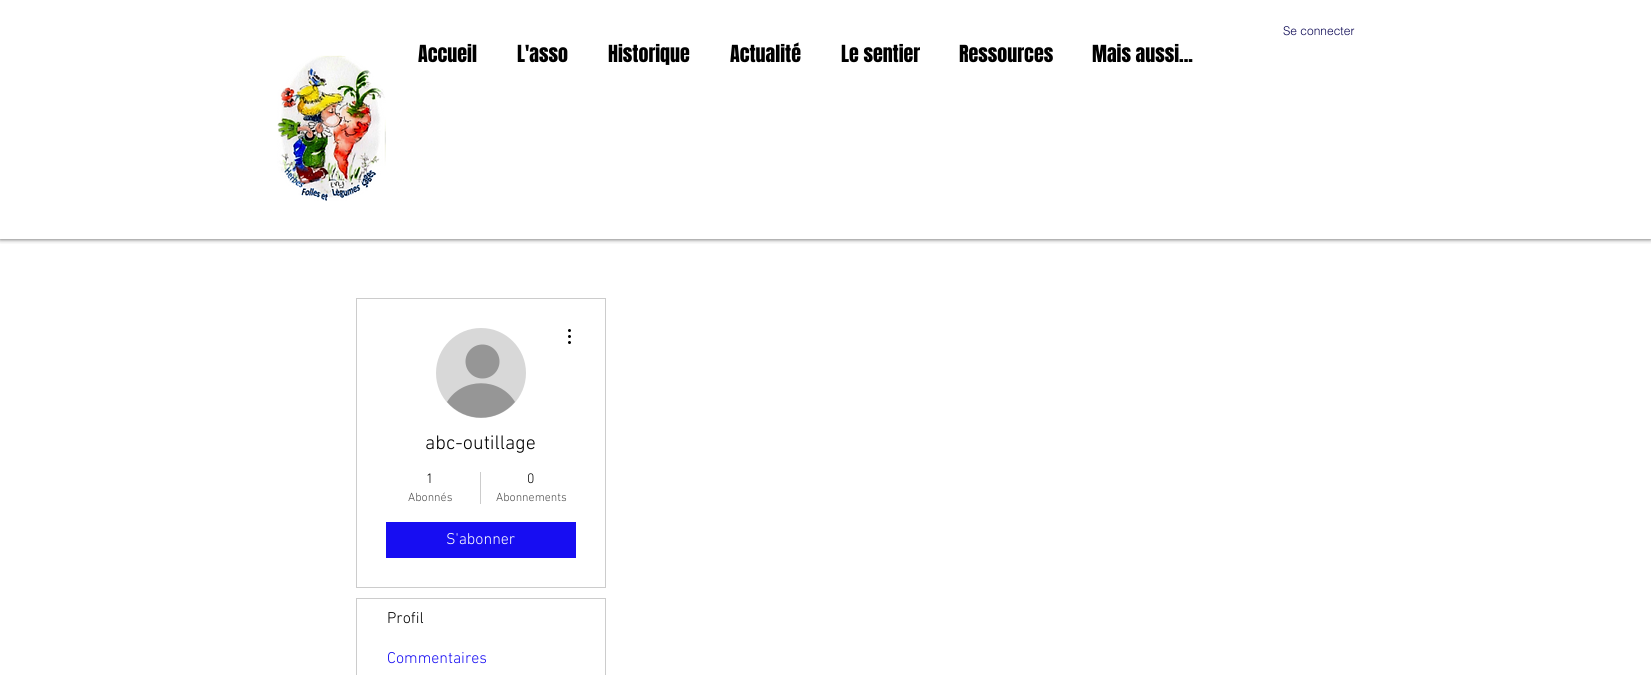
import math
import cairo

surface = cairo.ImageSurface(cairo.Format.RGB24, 1651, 675)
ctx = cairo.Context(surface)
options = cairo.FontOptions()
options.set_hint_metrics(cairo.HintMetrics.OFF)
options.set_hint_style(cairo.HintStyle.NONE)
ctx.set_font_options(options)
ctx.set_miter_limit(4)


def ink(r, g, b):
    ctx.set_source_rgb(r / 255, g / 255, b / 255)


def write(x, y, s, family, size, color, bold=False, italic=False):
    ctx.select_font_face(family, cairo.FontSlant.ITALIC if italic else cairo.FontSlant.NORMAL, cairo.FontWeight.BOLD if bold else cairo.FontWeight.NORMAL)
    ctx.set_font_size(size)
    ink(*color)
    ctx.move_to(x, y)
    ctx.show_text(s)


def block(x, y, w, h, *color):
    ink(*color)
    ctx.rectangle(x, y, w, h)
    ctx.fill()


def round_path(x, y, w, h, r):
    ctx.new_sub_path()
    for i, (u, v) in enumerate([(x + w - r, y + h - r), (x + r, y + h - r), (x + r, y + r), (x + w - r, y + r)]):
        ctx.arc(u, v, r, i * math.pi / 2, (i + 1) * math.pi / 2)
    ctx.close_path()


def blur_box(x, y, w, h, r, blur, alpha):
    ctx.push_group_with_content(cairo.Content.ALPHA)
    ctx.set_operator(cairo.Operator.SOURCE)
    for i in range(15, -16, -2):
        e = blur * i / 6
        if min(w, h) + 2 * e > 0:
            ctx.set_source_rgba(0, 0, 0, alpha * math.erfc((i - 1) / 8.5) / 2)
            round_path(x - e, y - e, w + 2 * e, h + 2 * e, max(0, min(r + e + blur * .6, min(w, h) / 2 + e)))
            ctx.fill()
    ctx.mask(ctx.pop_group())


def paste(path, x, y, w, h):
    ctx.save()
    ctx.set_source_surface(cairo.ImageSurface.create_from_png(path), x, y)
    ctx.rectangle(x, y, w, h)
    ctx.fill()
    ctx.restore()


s1 = dict(family="helvetica Light", size=12, color=(8, 4, 81))
s2 = dict(family="Anton", size=20, color=(0, 0, 0))
s3 = dict(family="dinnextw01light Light", size=20, color=(0, 0, 0))
s4 = dict(family="dinnextw01light Light", size=14, color=(0, 0, 0))
s5 = dict(family="dinnextw01light Light", size=12, color=(77, 77, 77))
s6 = dict(family="dinnextw01light Light", size=16, color=(255, 255, 255))
s7 = dict(family="dinnextw01light Light", size=16, color=(0, 0, 0))
s8 = dict(family="dinnextw01light Light", size=16, color=(23, 13, 242))

ink(255, 255, 255)
ctx.paint()
ctx.save()
ctx.rectangle(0, 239, 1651, 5)
ctx.clip()
ink(0, 0, 0)
blur_box(0, 0, 1651, 239, 0, 2.5, 0.7)
ctx.restore()
write(1283, 35, "Se connecter", **s1)
paste("pic1.png", 277, 55, 109, 146)
write(418, 62, "Accueil", **s2)
write(517, 62, "L'asso", **s2)
write(608, 62, "Historique", **s2)
write(730, 62, "Actualité", **s2)
write(841, 62, "Le sentier", **s2)
write(959, 62, "Ressources", **s2)
write(1092, 62, "Mais aussi...", **s2)
ctx.rectangle(356.5, 298.5, 249, 289)
ink(204, 204, 204)
ctx.set_line_width(1)
ctx.stroke()
ink(216, 216, 216)
ctx.arc(481, 373, 45, 0, 2 * math.pi)
ctx.fill()
ink(150, 150, 150)
ctx.arc(482.5, 361.5, 17, 0, 2 * math.pi)
ctx.fill()
ctx.new_path()
ctx.move_to(515, 402)
ctx.curve_to(497, 423, 465, 423, 447, 402)
ctx.curve_to(462, 377, 500, 377, 515, 402)
ctx.close_path()
ctx.fill()
paste("pic2.png", 568, 329, 3, 15)
write(425, 449, "abc-outillage", **s3)
write(426, 483, "1", **s4)
write(408, 501, "Abonnés", **s5)
block(480, 472, 1, 32, 204, 204, 204)
write(527, 483, "0", **s4)
write(496, 501, "Abonnements", **s5)
block(386, 522, 190, 36, 23, 13, 242)
write(446, 544, "S'abonner", **s6)
ctx.rectangle(356.5, 598.5, 249, 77)
ink(204, 204, 204)
ctx.stroke()
write(387, 623, "Profil", **s7)
write(387, 663, "Commentaires", **s8)
surface.write_to_png("screenshot.png")
